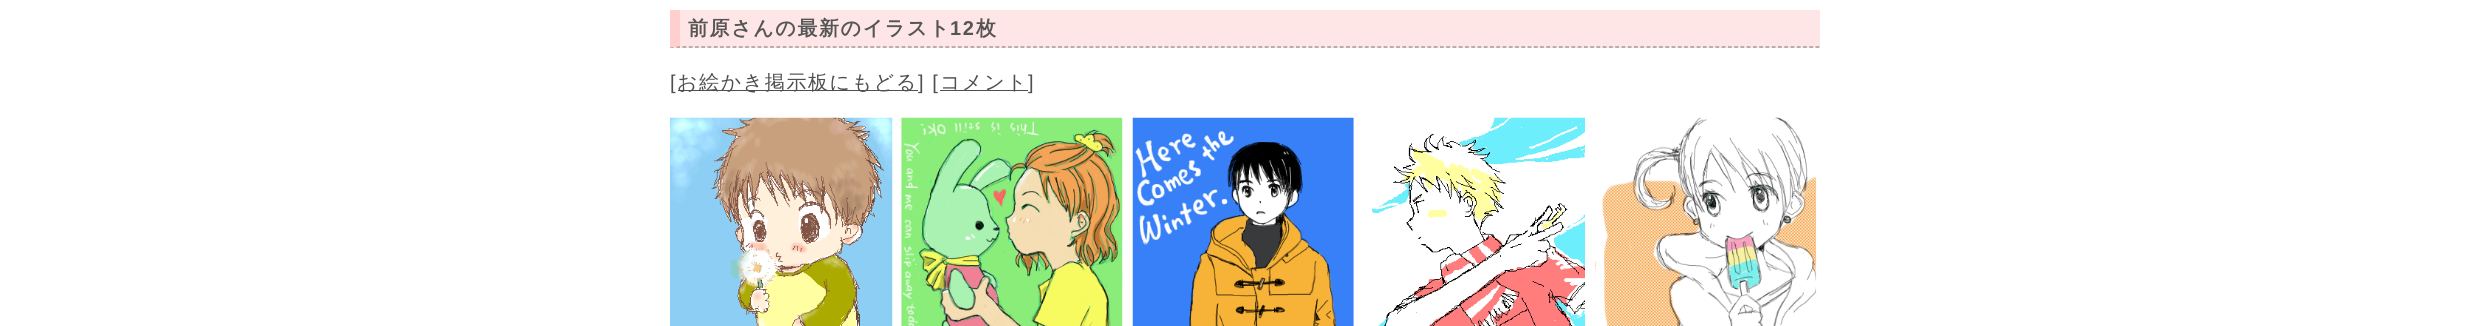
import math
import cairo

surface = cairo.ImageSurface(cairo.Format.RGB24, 2489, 326)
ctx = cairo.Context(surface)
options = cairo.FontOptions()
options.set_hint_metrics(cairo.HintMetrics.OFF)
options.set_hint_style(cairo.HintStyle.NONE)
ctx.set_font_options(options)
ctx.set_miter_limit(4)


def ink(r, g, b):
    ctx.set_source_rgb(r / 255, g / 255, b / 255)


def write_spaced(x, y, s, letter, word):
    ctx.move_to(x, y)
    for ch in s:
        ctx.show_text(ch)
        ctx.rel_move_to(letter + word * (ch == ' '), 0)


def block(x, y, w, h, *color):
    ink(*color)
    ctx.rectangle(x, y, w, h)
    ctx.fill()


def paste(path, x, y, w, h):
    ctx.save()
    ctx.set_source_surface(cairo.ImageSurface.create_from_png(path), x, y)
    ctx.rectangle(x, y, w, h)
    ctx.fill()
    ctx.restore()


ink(255, 255, 255)
ctx.paint()
block(670, 10, 1150, 38, 255, 230, 230)
ctx.new_path()
ctx.move_to(670, 47)
ctx.line_to(1820, 47)
ink(136, 136, 136)
ctx.set_line_width(1.2)
ctx.set_dash([3.75, 2.51])
ctx.stroke()
ink(255, 207, 207)
ctx.new_path()
ctx.move_to(670, 47.5)
ctx.line_to(670, 10)
ctx.line_to(680, 10)
ctx.line_to(680, 46)
ctx.close_path()
ctx.fill()
ctx.select_font_face("WenQuanYi Zen Hei", cairo.FontSlant.NORMAL, cairo.FontWeight.BOLD)
ctx.set_font_size(20)
ink(85, 85, 85)
write_spaced(688, 35, "前原さんの最新のイラスト", 1.6, 0)
ctx.select_font_face("Liberation Sans", cairo.FontSlant.NORMAL, cairo.FontWeight.BOLD)
write_spaced(950, 35, "12", 1.6, 0)
ctx.select_font_face("WenQuanYi Zen Hei", cairo.FontSlant.NORMAL, cairo.FontWeight.BOLD)
write_spaced(976, 35, "枚", 1.6, 0)
ctx.select_font_face("Liberation Sans")
ink(79, 79, 79)
write_spaced(670, 89, "[", 1.6, 0)
block(678, 90, 240, 1, 79, 79, 79)
ctx.select_font_face("WenQuanYi Zen Hei Medium")
write_spaced(677, 89, "お絵かき掲示板にもどる", 1.6, 0)
ctx.select_font_face("Liberation Sans")
write_spaced(918, 89, "] [", 1.6, 0)
block(940, 90, 88, 1, 79, 79, 79)
ctx.select_font_face("WenQuanYi Zen Hei Medium")
write_spaced(940, 89, "コメント", 1.6, 0)
ctx.select_font_face("Liberation Sans")
write_spaced(1028, 89, "]", 1.6, 0)
paste("pic1.png", 670, 117, 223, 209)
paste("pic2.png", 901, 117, 222, 209)
paste("pic3.png", 1132, 117, 222, 209)
paste("pic4.png", 1372, 117, 213, 209)
paste("pic5.png", 1595, 117, 222, 209)
surface.write_to_png("screenshot.png")
